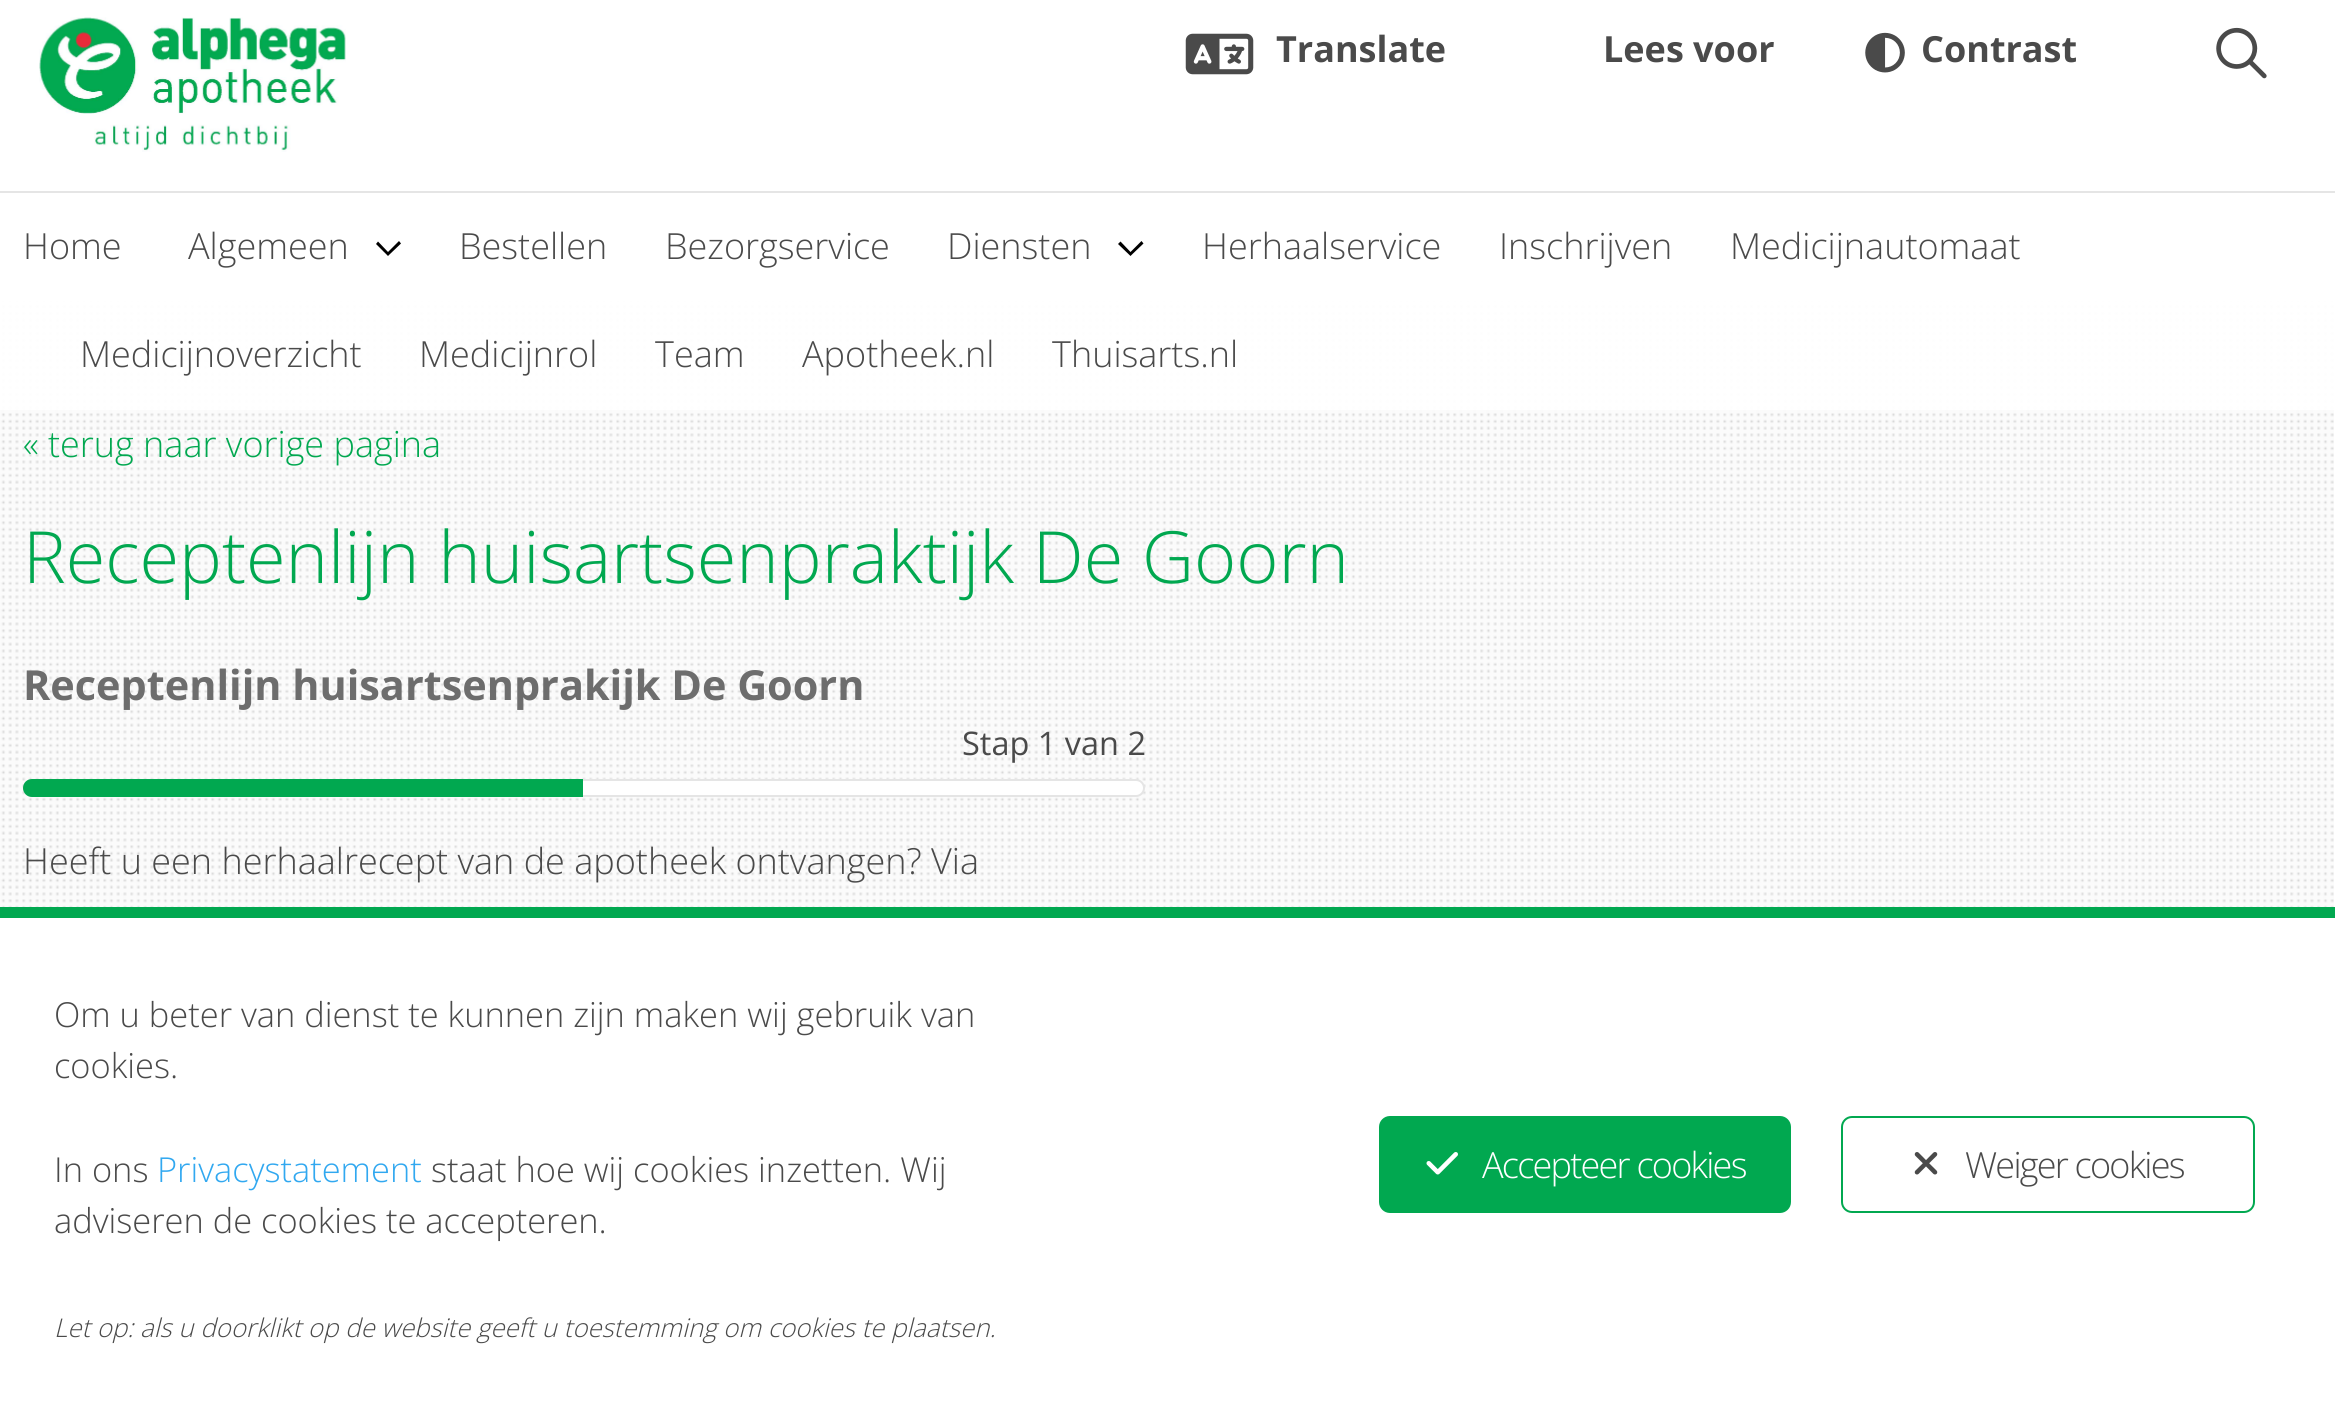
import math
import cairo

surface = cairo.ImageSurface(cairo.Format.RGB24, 2335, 1408)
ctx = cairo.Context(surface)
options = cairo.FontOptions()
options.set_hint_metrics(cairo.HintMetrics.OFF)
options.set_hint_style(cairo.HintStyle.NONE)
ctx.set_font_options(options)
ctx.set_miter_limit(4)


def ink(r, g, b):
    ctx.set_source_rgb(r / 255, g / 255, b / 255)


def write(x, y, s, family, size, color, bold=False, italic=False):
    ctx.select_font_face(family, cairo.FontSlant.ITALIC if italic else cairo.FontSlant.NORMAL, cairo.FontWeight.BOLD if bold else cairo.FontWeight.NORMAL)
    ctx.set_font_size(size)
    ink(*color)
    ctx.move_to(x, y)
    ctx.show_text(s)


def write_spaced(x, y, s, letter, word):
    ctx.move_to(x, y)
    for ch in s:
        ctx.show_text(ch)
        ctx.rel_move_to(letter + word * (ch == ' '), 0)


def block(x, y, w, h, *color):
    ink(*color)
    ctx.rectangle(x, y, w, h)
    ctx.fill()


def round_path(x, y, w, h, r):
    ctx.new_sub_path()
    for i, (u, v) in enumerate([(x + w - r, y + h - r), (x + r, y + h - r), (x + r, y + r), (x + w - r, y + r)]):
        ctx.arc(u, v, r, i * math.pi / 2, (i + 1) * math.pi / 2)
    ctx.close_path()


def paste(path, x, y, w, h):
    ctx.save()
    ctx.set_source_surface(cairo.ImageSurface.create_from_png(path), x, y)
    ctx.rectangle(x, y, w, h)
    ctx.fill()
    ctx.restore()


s1 = dict(family="Open Sans", size=36, color=(74, 74, 74), bold=True)
s2 = dict(family="Open Sans Light", size=36, color=(74, 74, 74))
s3 = dict(family="Open Sans Light", size=36, color=(1, 168, 80))
s4 = dict(family="Open Sans Light", size=72, color=(1, 168, 80))
s5 = dict(family="Open Sans", size=41.4, color=(109, 109, 109), bold=True)
s6 = dict(family="Open Sans", size=32.5, color=(74, 74, 74))
s7 = dict(family="Open Sans Light", size=34.4, color=(74, 74, 74))
s8 = dict(family="Open Sans Light", size=34.4, color=(49, 168, 240))
s9 = dict(family="Open Sans Light", size=25.8, color=(74, 74, 74), italic=True)

ink(255, 255, 255)
ctx.paint()
block(0, 191, 2335, 2, 229, 229, 229)
paste("pic1.png", 39, 17, 307, 135)
paste("pic2.png", 1185, 33, 69, 42)
write(1276, 62, "Translate", **s1)
write(1603, 62, "Lees voor", **s1)
paste("pic3.png", 1865, 32, 40, 41)
write(1921, 62, "Contrast", **s1)
paste("pic4.png", 2216, 27, 51, 52)
paste("pic5.png", 0, 301, 2334, 606)
ctx.set_source_rgba(0.902, 0.902, 0.902, 0.15)
ctx.rectangle(0, 302, 2335, 2)
ctx.fill()
ctx.set_source_rgba(1, 1, 1, 0.95)
ctx.rectangle(0, 301, 2335, 109)
ctx.fill()
write(23, 259, "Home", **s2)
write(188, 259, "Algemeen", **s2)
ink(0, 0, 0)
ctx.new_path()
ctx.move_to(390, 254)
ctx.line_to(401, 243.5)
ctx.line_to(399, 241)
ctx.line_to(388, 252)
ctx.line_to(378, 241.5)
ctx.line_to(376, 244)
ctx.line_to(388, 256)
ctx.close_path()
ctx.fill()
write(459, 259, "Bestellen", **s2)
write(665, 259, "Bezorgservice", **s2)
write(947, 259, "Diensten", **s2)
ink(0, 0, 0)
ctx.new_path()
ctx.move_to(1132.5, 254)
ctx.line_to(1143.5, 243.5)
ctx.line_to(1141.5, 241)
ctx.line_to(1130.5, 252)
ctx.line_to(1120.5, 241.5)
ctx.line_to(1118, 244)
ctx.line_to(1130.5, 256)
ctx.close_path()
ctx.fill()
write(1202, 259, "Herhaalservice", **s2)
write(1499, 259, "Inschrijven", **s2)
write(1730, 259, "Medicijnautomaat", **s2)
write(80, 367, "Medicijnoverzicht", **s2)
write(419, 367, "Medicijnrol", **s2)
write(655, 367, "Team", **s2)
write(802, 367, "Apotheek.nl", **s2)
write(1052, 367, "Thuisarts.nl", **s2)
write(23, 457, "« terug naar vorige pagina", **s3)
write(23, 583, "Receptenlijn huisartsenpraktijk De Goorn", **s4)
write(23, 700, "Receptenlijn huisartsenprakijk De Goorn", **s5)
write(962, 755, "Stap 1 van 2", **s6)
ink(255, 255, 255)
round_path(24, 780, 1120, 16, 8)
ctx.fill_preserve()
ink(229, 229, 229)
ctx.stroke()
ink(1, 168, 80)
ctx.new_path()
ctx.move_to(32, 779)
ctx.line_to(583, 779)
ctx.line_to(583, 797)
ctx.line_to(32, 797)
ctx.curve_to(27, 797, 23, 793, 23, 788)
ctx.curve_to(23, 783, 27, 779, 32, 779)
ctx.close_path()
ctx.fill()
write(23, 874, "Heeft u een herhaalrecept van de apotheek ontvangen? Via", **s2)
block(0, 907, 2335, 11, 1, 168, 80)
write(54, 1027, "Om u beter van dienst te kunnen zijn maken wij gebruik van", **s7)
write(54, 1078, "cookies.", **s7)
write(54, 1182, "In ons", **s7)
write(157, 1182, "Privacystatement", **s8)
write(431, 1182, "staat hoe wij cookies inzetten. Wij", **s7)
write(54, 1233, "adviseren de cookies te accepteren.", **s7)
write(54, 1337, "Let op: als u doorklikt op de website geeft u toestemming om cookies te plaatsen.", **s9)
ink(1, 168, 80)
round_path(1380, 1117, 410, 95, 10)
ctx.fill_preserve()
ctx.stroke()
paste("pic6.png", 1426, 1152, 32, 23)
ctx.select_font_face("Open Sans Light")
ctx.set_font_size(36)
ink(255, 255, 255)
write_spaced(1482, 1178, "Accepteer cookies", -1.75, 0)
round_path(1842, 1117, 412, 95, 10)
ink(1, 168, 80)
ctx.stroke()
paste("pic7.png", 1914, 1152, 24, 23)
ink(74, 74, 74)
write_spaced(1965, 1178, "Weiger cookies", -1.75, 0)
surface.write_to_png("screenshot.png")
